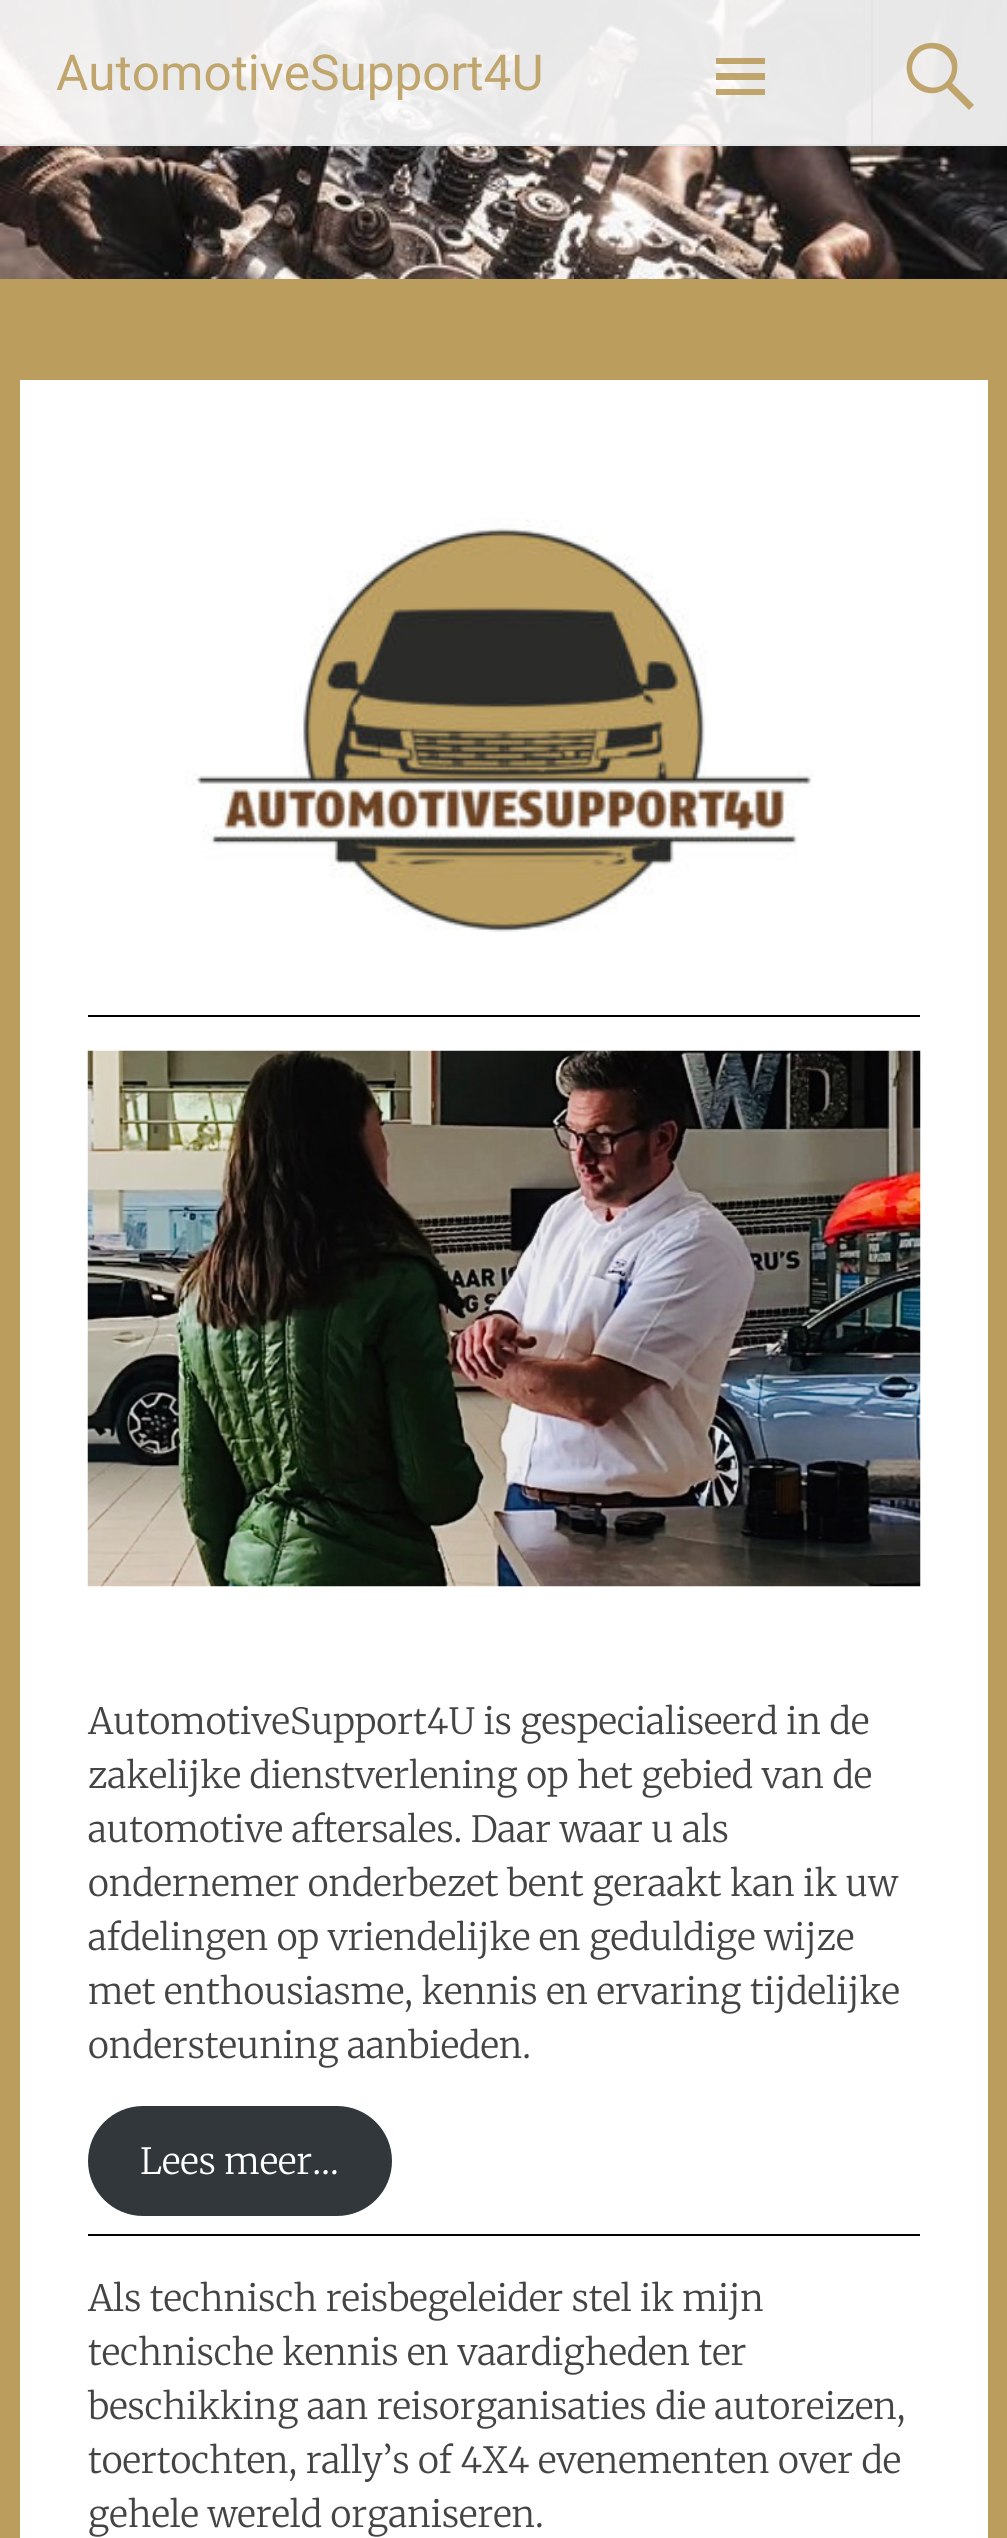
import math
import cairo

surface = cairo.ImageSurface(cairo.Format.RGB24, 1007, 2538)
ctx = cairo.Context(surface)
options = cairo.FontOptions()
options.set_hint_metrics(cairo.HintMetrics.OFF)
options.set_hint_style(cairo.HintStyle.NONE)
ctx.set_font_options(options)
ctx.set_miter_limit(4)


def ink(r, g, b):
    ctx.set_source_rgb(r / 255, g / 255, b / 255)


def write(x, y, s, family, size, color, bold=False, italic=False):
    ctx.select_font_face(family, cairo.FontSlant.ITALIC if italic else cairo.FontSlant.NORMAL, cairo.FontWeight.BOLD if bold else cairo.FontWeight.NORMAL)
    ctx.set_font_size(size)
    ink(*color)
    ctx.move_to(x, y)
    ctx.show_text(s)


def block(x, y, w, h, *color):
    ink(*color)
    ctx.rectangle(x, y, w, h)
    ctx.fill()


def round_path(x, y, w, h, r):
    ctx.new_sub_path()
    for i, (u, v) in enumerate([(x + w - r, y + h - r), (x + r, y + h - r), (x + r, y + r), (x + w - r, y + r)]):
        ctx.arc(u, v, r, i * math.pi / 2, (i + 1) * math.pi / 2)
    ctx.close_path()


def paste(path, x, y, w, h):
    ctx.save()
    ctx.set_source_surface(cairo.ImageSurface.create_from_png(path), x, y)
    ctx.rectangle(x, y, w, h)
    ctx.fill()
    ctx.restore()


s1 = dict(family="Roboto", size=49.5, color=(192, 165, 108))
s2 = dict(family="Merriweather Light", size=36, color=(68, 68, 68))
s3 = dict(family="Merriweather Light", size=36, color=(255, 255, 255))

ink(255, 255, 255)
ctx.paint()
paste("pic1.png", 0, 0, 1007, 279)
ctx.set_source_rgba(1, 1, 1, 0.9)
ctx.rectangle(0, 0, 1007, 146)
ctx.fill()
ctx.set_source_rgba(0.882, 0.894, 0.902, 0.9)
ctx.rectangle(0, 144, 1007, 2)
ctx.fill()
write(56, 90, "AutomotiveSupport4U", **s1)
ctx.set_source_rgba(0.733, 0.616, 0.369, 0.9)
ctx.new_path()
ctx.move_to(716, 95)
ctx.line_to(716, 89)
ctx.line_to(765, 89)
ctx.line_to(765, 95)
ctx.close_path()
ctx.move_to(716, 58)
ctx.line_to(765, 58)
ctx.line_to(765, 64)
ctx.line_to(716, 64)
ctx.close_path()
ctx.move_to(716, 80)
ctx.line_to(716, 73)
ctx.line_to(765, 73)
ctx.line_to(765, 80)
ctx.close_path()
ctx.fill()
ctx.set_source_rgba(0.882, 0.894, 0.902, 0.9)
ctx.rectangle(871, 0, 2, 144)
ctx.fill()
ctx.set_source_rgba(0.733, 0.616, 0.369, 0.9)
ctx.new_path()
ctx.move_to(974, 105)
ctx.line_to(969, 110)
ctx.line_to(947, 88)
ctx.curve_to(934, 98, 916, 93, 909, 79)
ctx.curve_to(907, 74, 906, 69, 907, 63)
ctx.curve_to(912, 37, 950, 36, 957, 61)
ctx.curve_to(958, 69, 957, 77, 952, 83)
ctx.close_path()
ctx.move_to(915, 58)
ctx.curve_to(902, 80, 936, 100, 949, 78)
ctx.curve_to(962, 56, 928, 36, 915, 58)
ctx.close_path()
ctx.fill()
block(0, 279, 1007, 2259, 187, 157, 94)
block(20, 380, 968, 2158, 255, 255, 255)
paste("pic2.png", 185, 518, 629, 414)
block(88, 1015, 832, 2, 0, 0, 0)
paste("pic3.png", 87, 1050, 834, 537)
write(88, 1734, "AutomotiveSupport4U is gespecialiseerd in de", **s2)
write(88, 1788, "zakelijke dienstverlening op het gebied van de", **s2)
write(88, 1842, "automotive aftersales. Daar waar u als", **s2)
write(88, 1896, "ondernemer onderbezet bent geraakt kan ik uw", **s2)
write(88, 1950, "afdelingen op vriendelijke en geduldige wijze", **s2)
write(88, 2004, "met enthousiasme, kennis en ervaring tijdelijke", **s2)
write(88, 2058, "ondersteuning aanbieden.", **s2)
ink(50, 55, 60)
round_path(88, 2106, 304, 110, 55)
ctx.fill()
write(140, 2174, "Lees meer…", **s3)
block(88, 2234, 832, 2, 0, 0, 0)
write(88, 2311, "Als technisch reisbegeleider stel ik mijn", **s2)
write(88, 2365, "technische kennis en vaardigheden ter", **s2)
write(88, 2419, "beschikking aan reisorganisaties die autoreizen,", **s2)
write(88, 2473, "toertochten, rally’s of 4X4 evenementen over de", **s2)
write(88, 2527, "gehele wereld organiseren.", **s2)
surface.write_to_png("screenshot.png")
